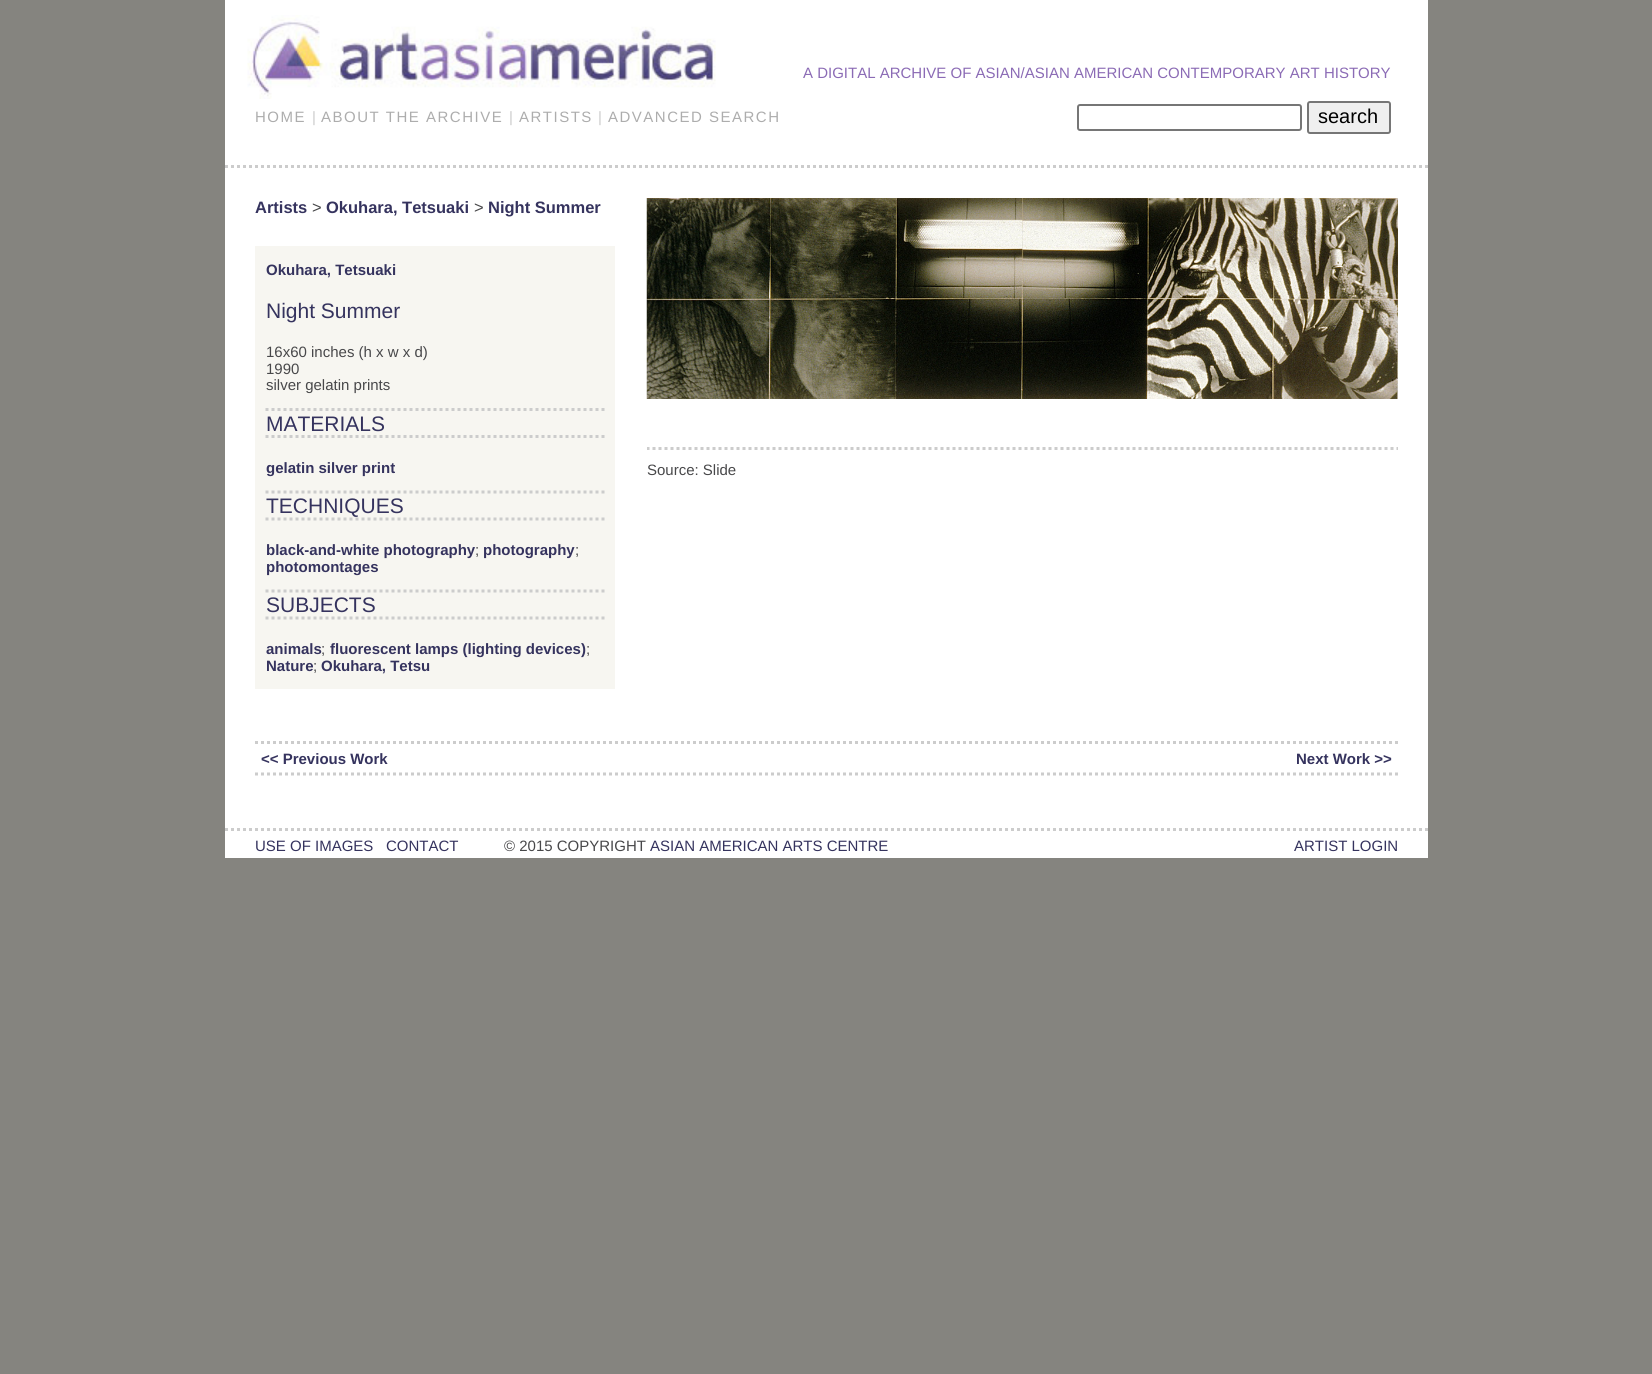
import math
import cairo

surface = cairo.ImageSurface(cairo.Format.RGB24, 1652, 1374)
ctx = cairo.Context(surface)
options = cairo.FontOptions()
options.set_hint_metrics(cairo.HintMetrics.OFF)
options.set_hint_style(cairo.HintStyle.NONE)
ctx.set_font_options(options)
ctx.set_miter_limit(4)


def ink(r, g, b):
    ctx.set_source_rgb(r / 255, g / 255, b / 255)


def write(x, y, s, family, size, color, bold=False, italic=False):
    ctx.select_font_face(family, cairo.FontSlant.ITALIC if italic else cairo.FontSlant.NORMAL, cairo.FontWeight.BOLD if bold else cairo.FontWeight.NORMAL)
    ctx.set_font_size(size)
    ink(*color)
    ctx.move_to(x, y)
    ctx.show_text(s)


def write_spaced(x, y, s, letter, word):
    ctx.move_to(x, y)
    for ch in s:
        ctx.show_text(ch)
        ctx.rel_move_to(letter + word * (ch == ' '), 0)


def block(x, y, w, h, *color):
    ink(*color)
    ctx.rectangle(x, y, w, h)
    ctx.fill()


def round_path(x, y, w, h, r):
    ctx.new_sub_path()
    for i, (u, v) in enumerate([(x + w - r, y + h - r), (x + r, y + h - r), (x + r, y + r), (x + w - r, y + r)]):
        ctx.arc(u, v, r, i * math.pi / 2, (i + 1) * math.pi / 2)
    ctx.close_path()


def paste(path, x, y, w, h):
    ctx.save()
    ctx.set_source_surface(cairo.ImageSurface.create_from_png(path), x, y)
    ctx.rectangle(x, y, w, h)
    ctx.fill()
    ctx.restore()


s1 = dict(family="Liberation Sans", size=15, color=(139, 107, 181))
s2 = dict(family="Liberation Sans", size=20, color=(0, 0, 0))
s3 = dict(family="Liberation Sans", size=16.5, color=(53, 51, 94), bold=True)
s4 = dict(family="Liberation Sans", size=16.5, color=(72, 72, 74))
s5 = dict(family="Liberation Sans", size=15, color=(53, 51, 94), bold=True)
s6 = dict(family="Liberation Sans", size=21, color=(53, 51, 94))
s7 = dict(family="Liberation Sans", size=15, color=(72, 72, 74))
s8 = dict(family="Liberation Sans", size=15, color=(53, 51, 94))

ink(133, 132, 127)
ctx.paint()
block(225, 0, 1203, 858, 255, 255, 255)
paste("pic1.png", 247, 15, 469, 84)
write(803, 78, "A DIGITAL ARCHIVE OF ASIAN/ASIAN AMERICAN CONTEMPORARY ART HISTORY", **s1)
ink(173, 173, 173)
write_spaced(255, 122, "HOME", 1.5, 0)
ink(204, 204, 204)
write_spaced(312, 122, "|", 1.5, 0)
ink(173, 173, 173)
write_spaced(321, 122, "ABOUT THE ARCHIVE", 1.5, 0)
ink(204, 204, 204)
write_spaced(509, 122, "|", 1.5, 0)
ink(173, 173, 173)
write_spaced(519, 122, "ARTISTS", 1.5, 0)
ink(204, 204, 204)
write_spaced(598, 122, "|", 1.5, 0)
ink(173, 173, 173)
write_spaced(608, 122, "ADVANCED SEARCH", 1.5, 0)
round_path(1078, 105, 223, 25, 2)
ink(118, 118, 118)
ctx.stroke()
ink(239, 239, 239)
round_path(1308, 102, 82, 31, 2)
ctx.fill_preserve()
ink(118, 118, 118)
ctx.stroke()
write(1318, 123, "search", **s2)
ctx.new_path()
ctx.move_to(225, 166.5)
ctx.line_to(1428, 166.5)
ink(204, 204, 204)
ctx.set_line_width(3)
ctx.set_dash([3, 3])
ctx.stroke()
write(255, 213, "Artists", **s3)
write(312, 213, ">", **s4)
write(326, 213, "Okuhara, Tetsuaki", **s3)
write(474, 213, ">", **s4)
write(488, 213, "Night Summer", **s3)
block(255, 246, 360, 443, 247, 246, 241)
write(266, 275, "Okuhara, Tetsuaki", **s5)
write(266, 318, "Night Summer", **s6)
write(266, 357, "16x60 inches (h x w x d)", **s7)
write(266, 374, "1990", **s7)
write(266, 390, "silver gelatin prints", **s7)
ctx.new_path()
ctx.move_to(265.5, 409.5)
ctx.line_to(604.5, 409.5)
ink(204, 204, 204)
ctx.stroke()
ctx.new_path()
ctx.move_to(265.5, 436.5)
ctx.line_to(604.5, 436.5)
ctx.stroke()
write(266, 431, "MATERIALS", **s6)
write(266, 473, "gelatin silver print", **s5)
ctx.new_path()
ctx.move_to(265.5, 492)
ctx.line_to(604.5, 492)
ink(204, 204, 204)
ctx.stroke()
ctx.new_path()
ctx.move_to(265.5, 519)
ctx.line_to(604.5, 519)
ctx.stroke()
write(266, 513, "TECHNIQUES", **s6)
write(266, 555, "black-and-white photography", **s5)
write(475, 555, ";", **s7)
write(483, 555, "photography", **s5)
write(575, 555, ";", **s7)
write(266, 572, "photomontages", **s5)
ctx.new_path()
ctx.move_to(265.5, 591)
ctx.line_to(604.5, 591)
ink(204, 204, 204)
ctx.stroke()
ctx.new_path()
ctx.move_to(265.5, 618)
ctx.line_to(604.5, 618)
ctx.stroke()
write(266, 612, "SUBJECTS", **s6)
write(266, 654, "animals", **s5)
write(321, 654, ";", **s7)
write(330, 654, "fluorescent lamps (lighting devices)", **s5)
write(586, 654, ";", **s7)
write(266, 671, "Nature", **s5)
write(313, 671, ";", **s7)
write(321, 671, "Okuhara, Tetsu", **s5)
ctx.save()
ctx.rectangle(647, 198, 751, 281)
ctx.clip()
ctx.new_path()
ctx.move_to(646.5, 448.5)
ctx.line_to(1398, 448.5)
ink(204, 204, 204)
ctx.stroke()
ctx.restore()
paste("pic2.png", 646, 198, 752, 201)
write(647, 475, "Source: Slide", **s7)
ctx.new_path()
ctx.move_to(255, 742.5)
ctx.line_to(1398, 742.5)
ink(204, 204, 204)
ctx.stroke()
ctx.new_path()
ctx.move_to(255, 774)
ctx.line_to(1398, 774)
ctx.stroke()
write(261, 764, "<< Previous Work", **s5)
write(1296, 764, "Next Work >>", **s5)
ctx.new_path()
ctx.move_to(225, 829.5)
ctx.line_to(1428, 829.5)
ink(204, 204, 204)
ctx.stroke()
write(255, 851, "USE OF IMAGES", **s8)
write(386, 851, "CONTACT", **s8)
write(504, 851, "© 2015 COPYRIGHT", **s7)
write(650, 851, "ASIAN AMERICAN ARTS CENTRE", **s8)
write(1294, 851, "ARTIST LOGIN", **s8)
surface.write_to_png("screenshot.png")
